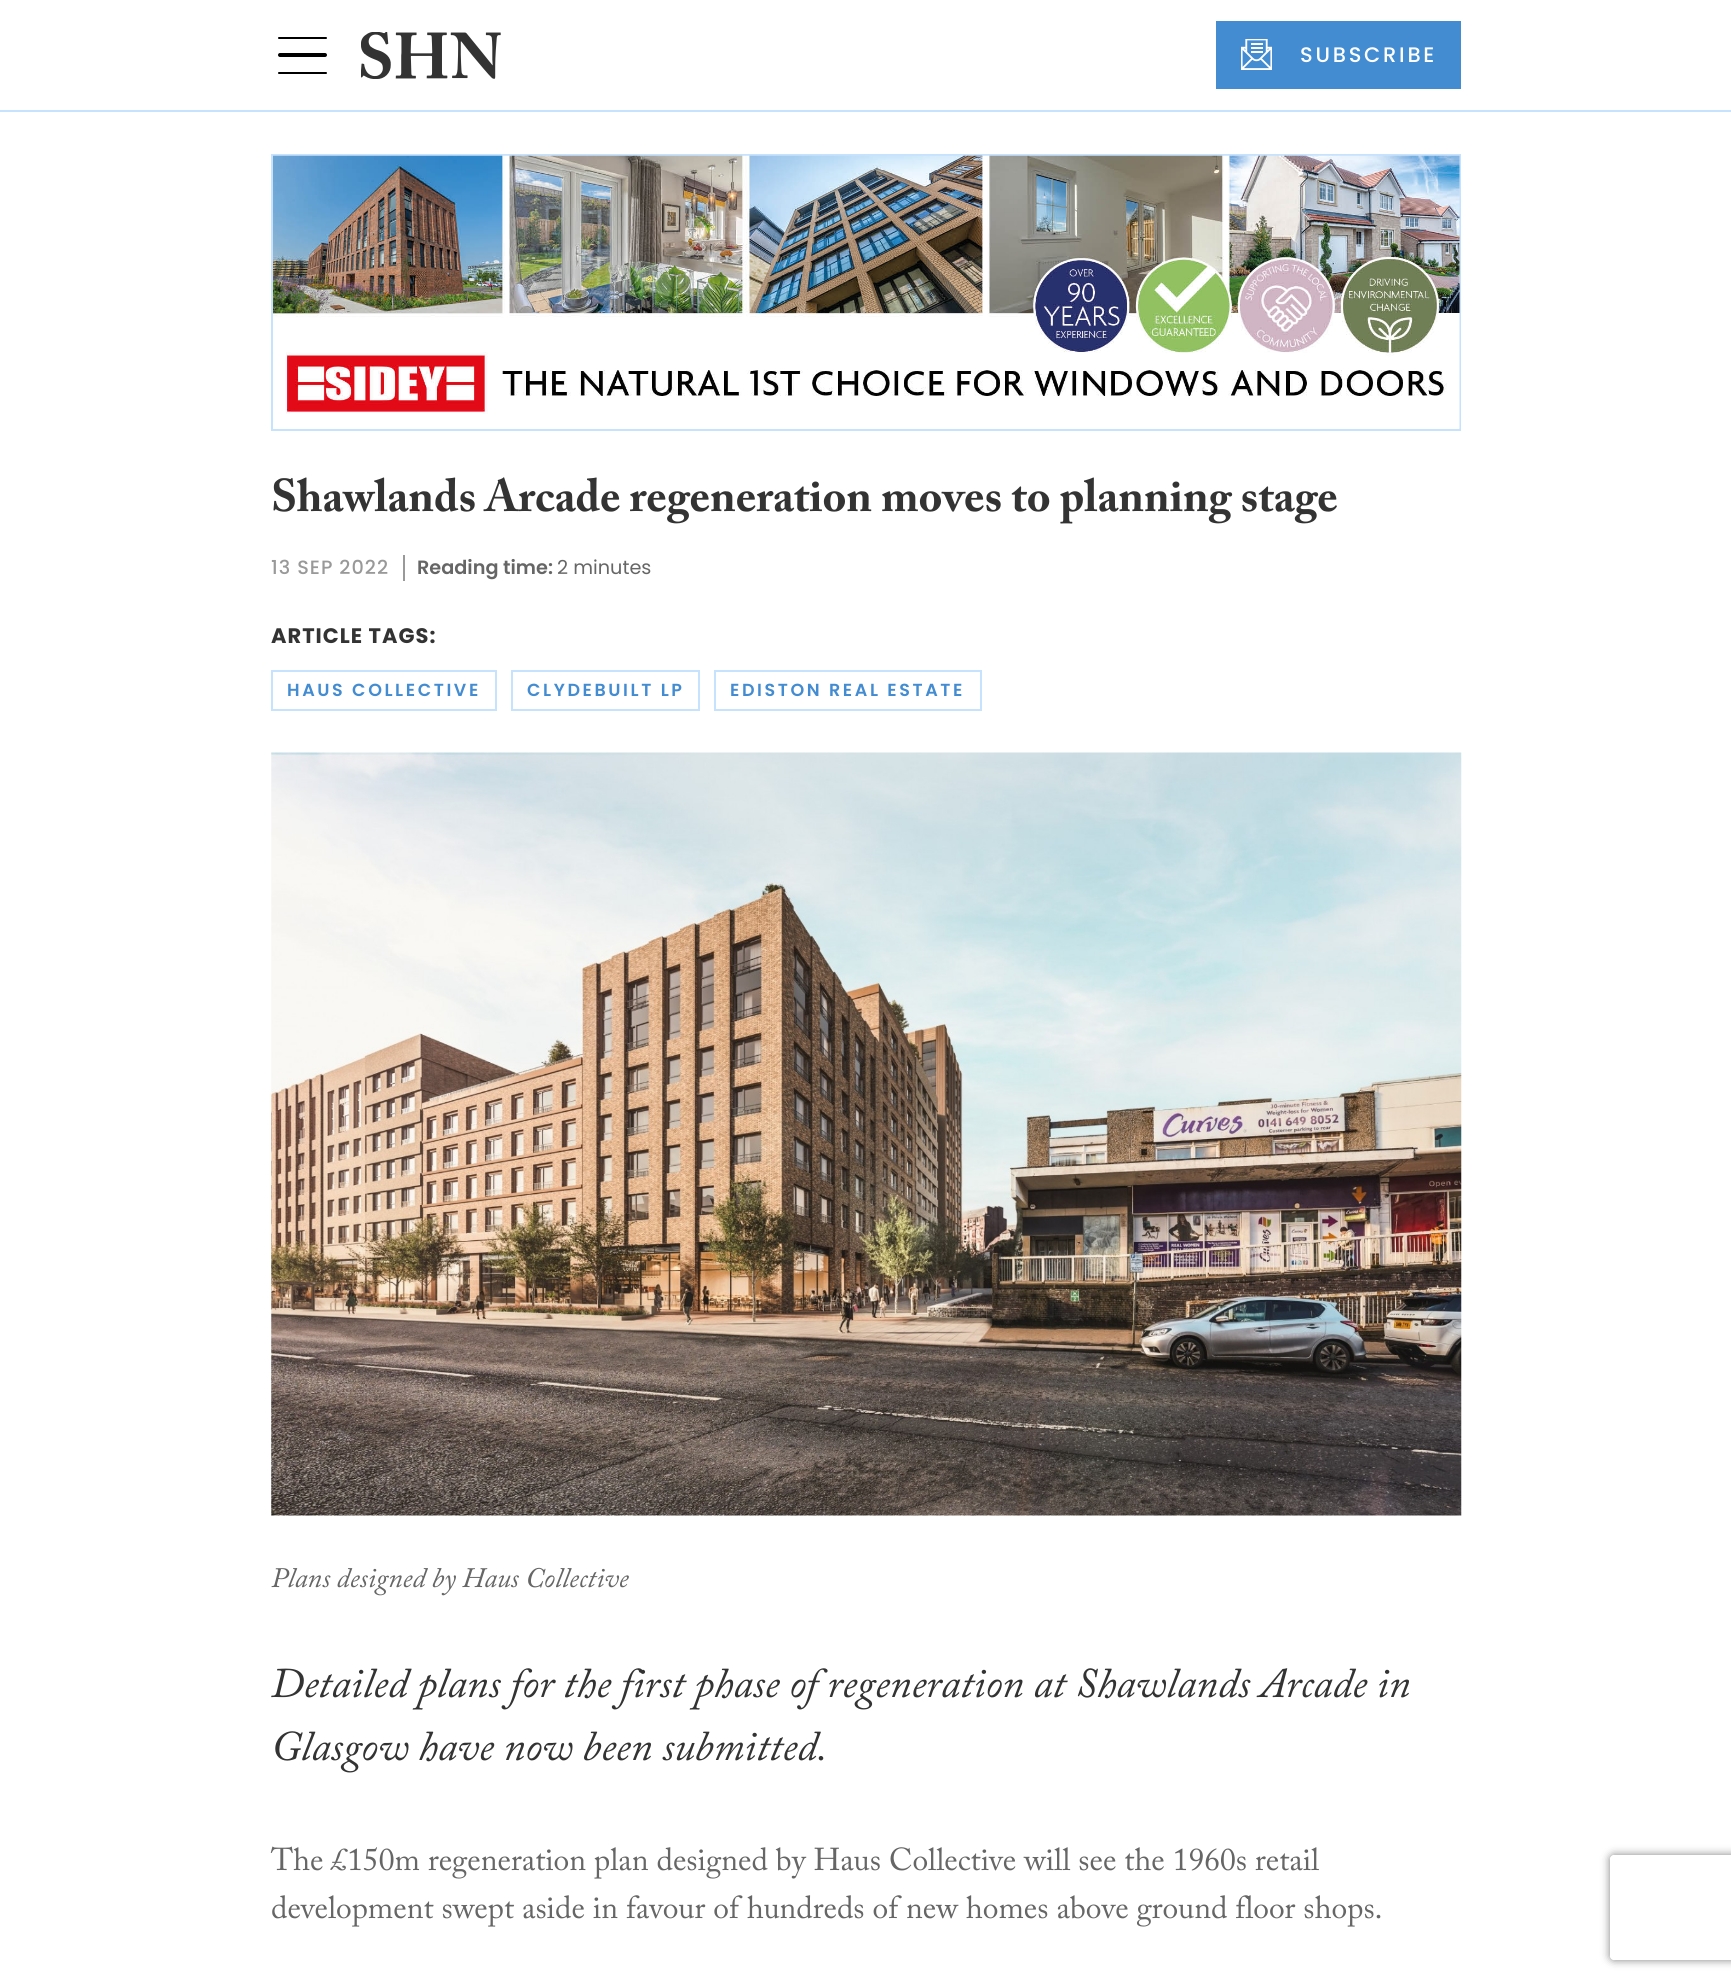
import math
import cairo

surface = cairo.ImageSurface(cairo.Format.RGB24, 1731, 1983)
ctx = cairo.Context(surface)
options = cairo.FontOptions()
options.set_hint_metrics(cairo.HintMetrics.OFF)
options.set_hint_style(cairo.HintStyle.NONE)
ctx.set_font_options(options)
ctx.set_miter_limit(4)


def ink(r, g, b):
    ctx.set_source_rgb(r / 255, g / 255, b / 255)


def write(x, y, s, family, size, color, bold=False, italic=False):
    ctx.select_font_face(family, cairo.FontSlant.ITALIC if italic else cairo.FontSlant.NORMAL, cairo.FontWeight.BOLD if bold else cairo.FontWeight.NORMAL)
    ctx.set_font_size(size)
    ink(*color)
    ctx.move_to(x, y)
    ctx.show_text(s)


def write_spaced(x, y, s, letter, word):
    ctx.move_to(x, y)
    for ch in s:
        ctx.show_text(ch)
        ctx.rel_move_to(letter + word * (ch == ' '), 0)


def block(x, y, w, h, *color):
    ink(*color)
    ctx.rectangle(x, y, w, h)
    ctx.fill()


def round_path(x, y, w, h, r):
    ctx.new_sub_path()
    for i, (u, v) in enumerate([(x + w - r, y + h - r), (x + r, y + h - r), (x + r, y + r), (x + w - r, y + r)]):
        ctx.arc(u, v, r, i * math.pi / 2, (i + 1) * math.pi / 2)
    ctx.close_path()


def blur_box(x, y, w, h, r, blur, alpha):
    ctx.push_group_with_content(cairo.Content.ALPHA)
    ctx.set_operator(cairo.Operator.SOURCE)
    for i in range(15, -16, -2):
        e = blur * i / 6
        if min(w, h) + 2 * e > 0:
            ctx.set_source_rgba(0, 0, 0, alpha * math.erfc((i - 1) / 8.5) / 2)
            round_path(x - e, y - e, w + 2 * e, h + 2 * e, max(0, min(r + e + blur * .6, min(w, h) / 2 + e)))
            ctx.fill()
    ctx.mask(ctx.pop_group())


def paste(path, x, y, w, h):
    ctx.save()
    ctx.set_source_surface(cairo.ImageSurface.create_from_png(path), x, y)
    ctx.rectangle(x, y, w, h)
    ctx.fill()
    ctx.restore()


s1 = dict(family="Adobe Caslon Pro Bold", size=45.5, color=(51, 51, 51), bold=True)
s2 = dict(family="Poppins SemiBold", size=19.25, color=(102, 102, 102))
s3 = dict(family="Poppins", size=19.25, color=(102, 102, 102))
s4 = dict(family="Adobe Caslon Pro", size=28, color=(102, 102, 102), italic=True)
s5 = dict(family="Adobe Caslon Pro", size=42, color=(51, 51, 51), italic=True)
s6 = dict(family="Adobe Caslon Pro", size=31.5, color=(102, 102, 102))

ink(255, 255, 255)
ctx.paint()
block(0, 110, 1731, 2, 198, 226, 253)
ink(0, 0, 0)
round_path(278, 37, 49, 2, 1)
ctx.fill()
round_path(278, 53, 49, 4, 2)
ctx.fill()
round_path(278, 72, 49, 2, 1)
ctx.fill()
paste("pic1.png", 361, 32, 140, 47)
block(1216, 21, 245, 68, 67, 140, 209)
paste("pic2.png", 1241, 39, 31, 31)
ctx.select_font_face("Poppins Medium")
ctx.set_font_size(21)
ink(255, 255, 255)
write_spaced(1300, 62, "SUBSCRIBE", 2.75, 0)
ctx.rectangle(272, 155, 1188, 275)
ink(198, 226, 253)
ctx.stroke()
paste("pic3.png", 273, 155, 1187, 274)
write(271, 511, "Shawlands Arcade regeneration moves to planning stage", **s1)
ctx.select_font_face("Poppins Medium")
ctx.set_font_size(19.25)
ink(153, 153, 153)
write_spaced(271, 574, "13 SEP 2022", 1, 0)
block(403, 555, 2, 26, 153, 153, 153)
write(417, 574, "Reading time:", **s2)
write(557, 574, "2 minutes", **s3)
ctx.select_font_face("Poppins", cairo.FontSlant.NORMAL, cairo.FontWeight.BOLD)
ctx.set_font_size(21)
ink(51, 51, 51)
write_spaced(271, 643, "ARTICLE TAGS:", 1, 0)
ctx.rectangle(272, 671, 224, 39)
ink(198, 226, 253)
ctx.stroke()
ctx.select_font_face("Poppins SemiBold")
ctx.set_font_size(17.5)
ink(67, 140, 209)
write_spaced(287, 696, "HAUS COLLECTIVE", 2.6, 0)
ctx.rectangle(512, 671, 187, 39)
ink(198, 226, 253)
ctx.stroke()
ink(67, 140, 209)
write_spaced(527, 696, "CLYDEBUILT LP", 2.6, 0)
ctx.rectangle(715, 671, 266, 39)
ink(198, 226, 253)
ctx.stroke()
ink(67, 140, 209)
write_spaced(730, 696, "EDISTON REAL ESTATE", 2.6, 0)
paste("pic4.png", 271, 752, 1191, 764)
write(271, 1587, "Plans designed by Haus Collective", **s4)
write(271, 1697, "Detailed plans for the first phase of regeneration at Shawlands Arcade in", **s5)
write(271, 1760, "Glasgow have now been submitted.", **s5)
write(271, 1870, "The £150m regeneration plan designed by Haus Collective will see the 1960s retail", **s6)
write(271, 1918, "development swept aside in favour of hundreds of new homes above ground floor shops.", **s6)
ctx.save()
ctx.set_fill_rule(cairo.FillRule.EVEN_ODD)
ctx.new_path()
ctx.move_to(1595, 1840)
ctx.line_to(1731, 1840)
ctx.line_to(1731, 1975)
ctx.line_to(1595, 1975)
ctx.close_path()
ctx.move_to(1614, 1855)
ctx.line_to(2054, 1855)
ctx.curve_to(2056, 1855, 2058, 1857, 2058, 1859)
ctx.line_to(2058, 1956)
ctx.curve_to(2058, 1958, 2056, 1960, 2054, 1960)
ctx.line_to(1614, 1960)
ctx.curve_to(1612, 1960, 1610, 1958, 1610, 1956)
ctx.line_to(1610, 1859)
ctx.curve_to(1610, 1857, 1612, 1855, 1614, 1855)
ctx.close_path()
ctx.clip()
ink(128, 128, 128)
blur_box(1610, 1855, 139, 105, 4, 4.5, 1)
ctx.restore()
surface.write_to_png("screenshot.png")
